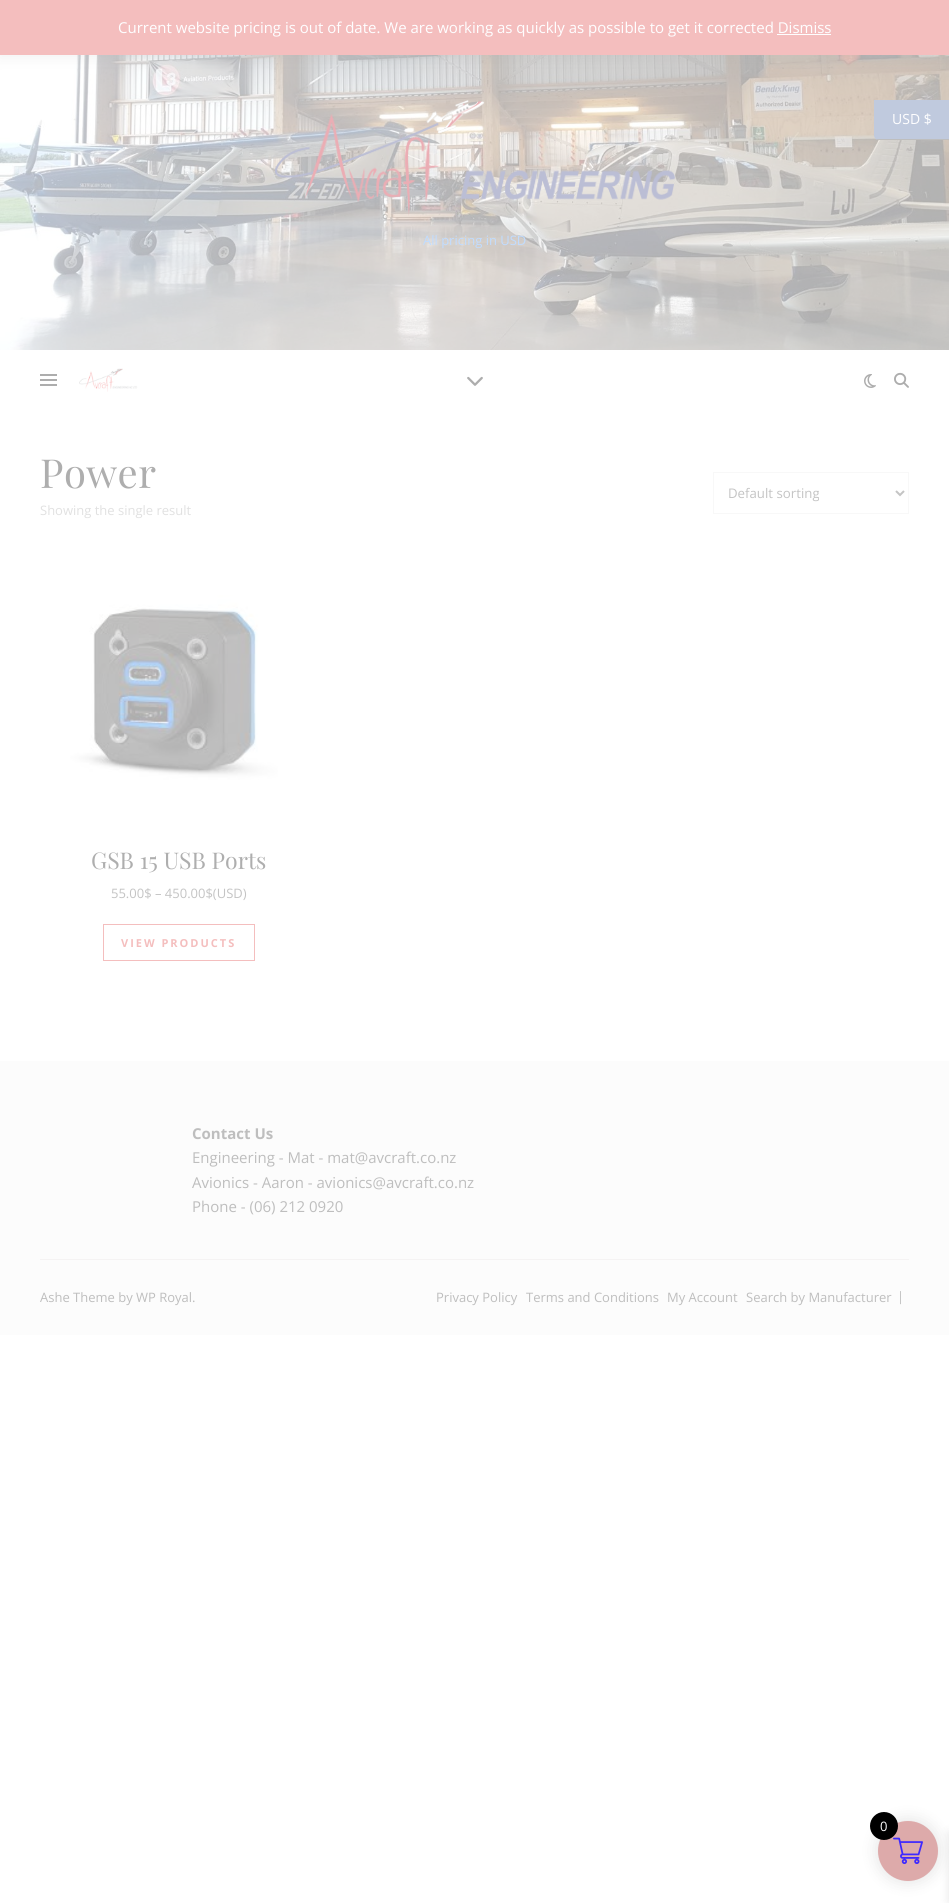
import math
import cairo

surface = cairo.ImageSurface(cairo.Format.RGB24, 949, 1903)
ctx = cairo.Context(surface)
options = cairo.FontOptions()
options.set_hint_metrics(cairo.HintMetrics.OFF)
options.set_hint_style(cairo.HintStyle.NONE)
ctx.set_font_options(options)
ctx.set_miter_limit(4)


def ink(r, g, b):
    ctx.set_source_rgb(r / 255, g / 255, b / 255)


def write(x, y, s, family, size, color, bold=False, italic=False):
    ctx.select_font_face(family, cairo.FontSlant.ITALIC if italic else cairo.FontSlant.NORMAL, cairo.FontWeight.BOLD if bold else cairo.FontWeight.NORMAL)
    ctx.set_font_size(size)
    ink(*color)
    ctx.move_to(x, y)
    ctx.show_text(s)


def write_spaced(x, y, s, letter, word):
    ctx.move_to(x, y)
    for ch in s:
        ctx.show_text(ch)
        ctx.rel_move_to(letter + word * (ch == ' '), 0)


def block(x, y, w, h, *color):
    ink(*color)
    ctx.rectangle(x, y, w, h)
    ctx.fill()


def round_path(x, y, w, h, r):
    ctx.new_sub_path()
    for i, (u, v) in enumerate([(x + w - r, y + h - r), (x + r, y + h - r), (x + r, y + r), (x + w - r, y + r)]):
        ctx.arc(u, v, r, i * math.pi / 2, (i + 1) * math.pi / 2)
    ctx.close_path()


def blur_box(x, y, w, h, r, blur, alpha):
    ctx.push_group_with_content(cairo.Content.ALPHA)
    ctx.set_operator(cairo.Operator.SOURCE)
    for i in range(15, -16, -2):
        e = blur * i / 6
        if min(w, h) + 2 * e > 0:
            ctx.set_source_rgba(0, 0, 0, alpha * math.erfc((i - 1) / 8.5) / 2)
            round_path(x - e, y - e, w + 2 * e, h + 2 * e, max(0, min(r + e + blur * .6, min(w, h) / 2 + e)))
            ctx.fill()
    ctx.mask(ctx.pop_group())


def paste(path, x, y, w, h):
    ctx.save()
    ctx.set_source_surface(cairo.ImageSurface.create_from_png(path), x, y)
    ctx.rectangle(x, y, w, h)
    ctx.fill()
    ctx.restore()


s1 = dict(family="Open Sans", size=15, color=(254, 254, 255))
s2 = dict(family="Open Sans", size=14, color=(254, 254, 255))
s3 = dict(family="Open Sans", size=13, color=(192, 220, 255))
s4 = dict(family="Open Sans", size=13.25, color=(196, 196, 196))
s5 = dict(family="Open Sans", size=13, color=(225, 225, 225))
s6 = dict(family="Playfair Display", size=23, color=(174, 174, 174))
s7 = dict(family="Open Sans", size=13, color=(196, 196, 196))
s8 = dict(family="Open Sans", size=15, color=(190, 190, 190), bold=True)
s9 = dict(family="Open Sans", size=15, color=(190, 190, 190))
s10 = dict(family="Open Sans", size=13, color=(190, 190, 190))
s11 = dict(family="Open Sans", size=13, color=(254, 254, 255))

ink(255, 255, 255)
ctx.paint()
paste("pic1.png", 0, 55, 949, 295)
ink(173, 173, 173)
blur_box(0, 1, 949, 55, 0, 7.5, 0.2)
block(0, 0, 949, 55, 244, 190, 190)
write(118, 33, "Current website pricing is out of date. We are working as quickly as possible to get it corrected Dismiss", **s1)
block(777, 34, 54, 1, 254, 254, 255)
ink(192, 202, 222)
ctx.new_path()
ctx.move_to(874, 100)
ctx.line_to(949, 100)
ctx.line_to(949, 140)
ctx.line_to(879, 140)
ctx.curve_to(876, 140, 874, 138, 874, 135)
ctx.close_path()
ctx.fill()
block(877, 139, 72, 1, 190, 190, 190)
write(892, 124, "USD $", **s2)
paste("pic2.png", 275, 100, 400, 116)
write(423, 245, "All pricing in USD", **s3)
block(40, 374, 17, 2, 173, 173, 173)
block(40, 379, 17, 2, 173, 173, 173)
block(40, 384, 17, 2, 173, 173, 173)
paste("pic3.png", 79, 368, 59, 24)
paste("pic4.png", 467, 376, 16, 10)
paste("pic5.png", 864, 374, 12, 14)
paste("pic6.png", 894, 372, 15, 16)
ctx.select_font_face("Playfair Display")
ctx.set_font_size(40)
ink(174, 174, 174)
write_spaced(40, 488, "Power", 0.5, 0)
ctx.rectangle(713.5, 472.5, 195, 41)
ink(248, 248, 248)
ctx.set_line_width(1)
ctx.stroke()
ctx.new_path()
ctx.move_to(896, 491)
ctx.line_to(900, 495)
ctx.line_to(904, 491)
ink(196, 196, 196)
ctx.set_line_width(2)
ctx.stroke()
write(728, 498, "Default sorting", **s4)
write(40, 515, "Showing the single result", **s5)
paste("pic7.png", 70, 595, 208, 185)
write(91, 869, "GSB 15 USB Ports", **s6)
write(111, 898, "55.00$ – 450.00$(USD)", **s7)
ctx.rectangle(103.5, 924.5, 151, 36)
ink(244, 190, 190)
ctx.set_line_width(1)
ctx.stroke()
ctx.select_font_face("Open Sans", cairo.FontSlant.NORMAL, cairo.FontWeight.BOLD)
ctx.set_font_size(11)
write_spaced(121, 947, "VIEW PRODUCTS", 2, 0)
block(0, 1061, 949, 274, 252, 252, 252)
block(40, 1259, 869, 1, 245, 243, 243)
write(192, 1139, "Contact Us", **s8)
write(192, 1163, "Engineering - Mat - mat@avcraft.co.nz", **s9)
write(192, 1188, "Avionics - Aaron - avionics@avcraft.co.nz", **s9)
write(192, 1212, "Phone - (06) 212 0920", **s9)
write(40, 1302, "Ashe Theme by WP Royal.", **s10)
write(436, 1302, "Privacy Policy", **s10)
write(526, 1302, "Terms and Conditions", **s10)
write(667, 1302, "My Account", **s10)
write(746, 1302, "Search by Manufacturer", **s10)
write(897, 1301, "|", **s10)
ink(0, 0, 0)
blur_box(876, 1819, 64, 64, 32, 7.5, 0.1)
blur_box(949, 1833, 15, 69, 0, 5, 0.1)
ink(221, 170, 170)
ctx.arc(908, 1851, 30, 0, 2 * math.pi)
ctx.fill()
paste("pic8.png", 893, 1837, 30, 27)
ink(0, 0, 0)
ctx.arc(884, 1826, 14, 0, 2 * math.pi)
ctx.fill()
write(880, 1831, "0", **s11)
surface.write_to_png("screenshot.png")
